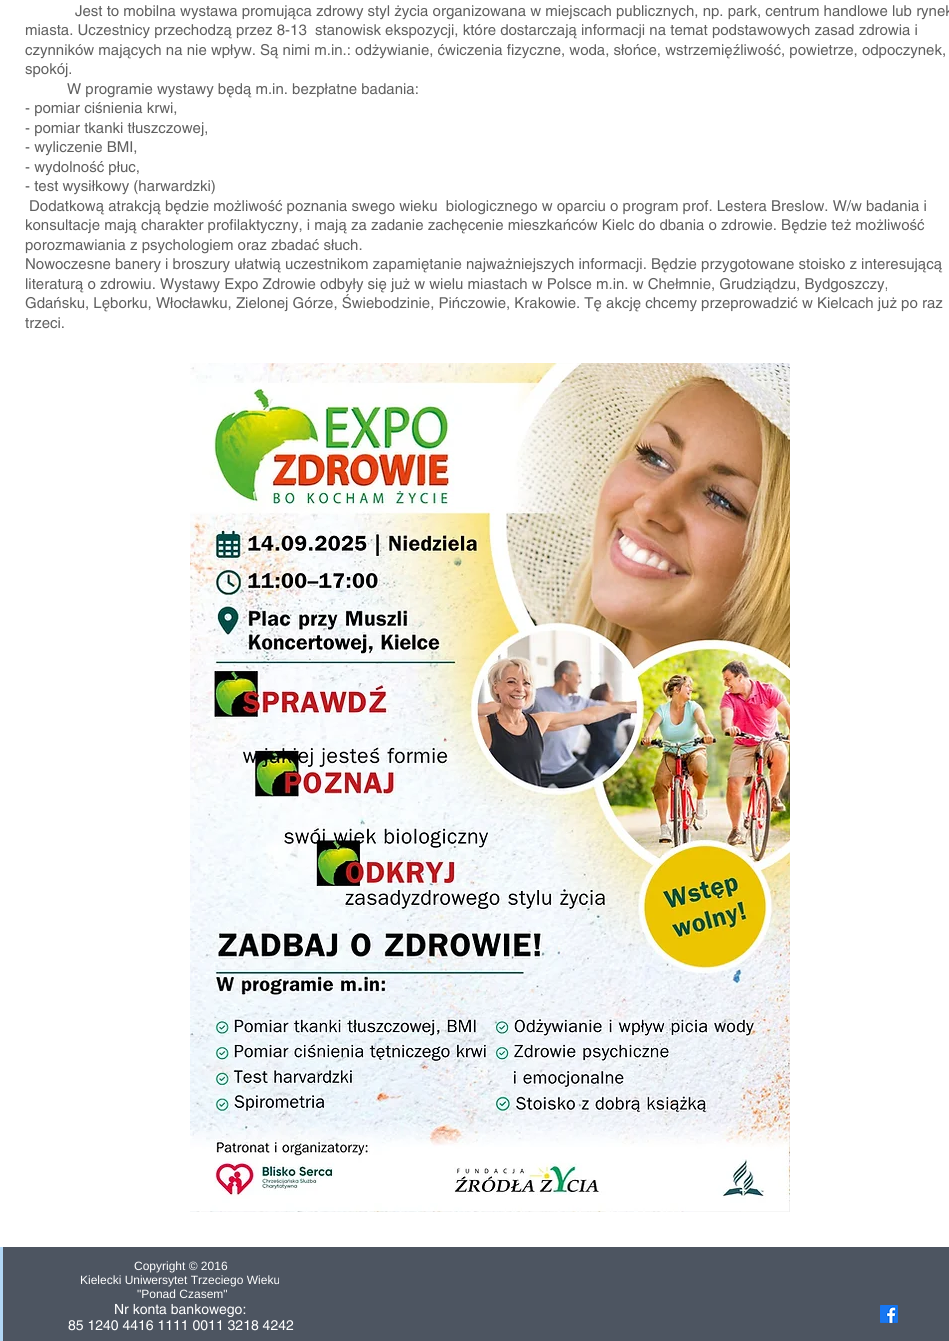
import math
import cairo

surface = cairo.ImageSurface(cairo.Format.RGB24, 949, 1341)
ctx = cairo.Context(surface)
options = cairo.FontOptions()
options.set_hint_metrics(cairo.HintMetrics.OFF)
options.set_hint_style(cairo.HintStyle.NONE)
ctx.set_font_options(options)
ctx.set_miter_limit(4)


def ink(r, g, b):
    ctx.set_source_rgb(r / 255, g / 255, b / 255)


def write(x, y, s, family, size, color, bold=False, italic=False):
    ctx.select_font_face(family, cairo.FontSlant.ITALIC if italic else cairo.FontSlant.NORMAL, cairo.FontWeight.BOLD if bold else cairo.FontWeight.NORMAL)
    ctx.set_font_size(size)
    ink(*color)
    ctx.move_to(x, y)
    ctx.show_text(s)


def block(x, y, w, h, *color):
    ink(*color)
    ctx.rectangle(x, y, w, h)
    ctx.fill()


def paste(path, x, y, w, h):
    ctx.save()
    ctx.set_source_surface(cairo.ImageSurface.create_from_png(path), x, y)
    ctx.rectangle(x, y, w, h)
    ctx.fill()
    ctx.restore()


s1 = dict(family="helvetica", size=15, color=(96, 96, 96))
s2 = dict(family="Liberation Sans", size=12, color=(255, 255, 255))
s3 = dict(family="helvetica", size=14, color=(255, 255, 255))

ink(255, 255, 255)
ctx.paint()
write(75, 16, "Jest to mobilna wystawa promująca zdrowy styl życia organizowana w miejscach publicznych, np. park, centrum handlowe lub rynek", **s1)
write(25, 35, "miasta. Uczestnicy przechodzą przez 8-13  stanowisk ekspozycji, które dostarczają informacji na temat podstawowych zasad zdrowia i", **s1)
write(25, 55, "czynników mających na nie wpływ. Są nimi m.in.: odżywianie, ćwiczenia fizyczne, woda, słońce, wstrzemięźliwość, powietrze, odpoczynek,", **s1)
write(25, 74, "spokój.", **s1)
write(67, 94, "W programie wystawy będą m.in. bezpłatne badania:", **s1)
write(25, 113, "- pomiar ciśnienia krwi,", **s1)
write(25, 133, "- pomiar tkanki tłuszczowej,", **s1)
write(25, 152, "- wyliczenie BMI,", **s1)
write(25, 172, "- wydolność płuc,", **s1)
write(25, 191, "- test wysiłkowy (harwardzki)", **s1)
write(29, 211, "Dodatkową atrakcją będzie możliwość poznania swego wieku  biologicznego w oparciu o program prof. Lestera Breslow. W/w badania i", **s1)
write(25, 230, "konsultacje mają charakter profilaktyczny, i mają za zadanie zachęcenie mieszkańców Kielc do dbania o zdrowie. Będzie też możliwość", **s1)
write(25, 250, "porozmawiania z psychologiem oraz zbadać słuch.", **s1)
write(25, 269, "Nowoczesne banery i broszury ułatwią uczestnikom zapamiętanie najważniejszych informacji. Będzie przygotowane stoisko z interesującą", **s1)
write(25, 289, "literaturą o zdrowiu. Wystawy Expo Zdrowie odbyły się już w wielu miastach w Polsce m.in. w Chełmnie, Grudziądzu, Bydgoszczy,", **s1)
write(25, 308, "Gdańsku, Lęborku, Włocławku, Zielonej Górze, Świebodzinie, Pińczowie, Krakowie. Tę akcję chcemy przeprowadzić w Kielcach już po raz", **s1)
write(25, 328, "trzeci.", **s1)
paste("pic1.png", 190, 363, 600, 849)
block(0, 1247, 3, 94, 177, 215, 246)
block(3, 1247, 946, 94, 77, 85, 97)
write(134, 1270, "Copyright © 2016", **s2)
write(80, 1284, "Kielecki Uniwersytet Trzeciego Wieku", **s2)
write(137, 1298, "\"Ponad Czasem\"", **s2)
write(114, 1314, "Nr konta bankowego:", **s3)
write(68, 1330, "85 1240 4416 1111 0011 3218 4242", **s3)
paste("pic2.png", 880, 1305, 18, 18)
surface.write_to_png("screenshot.png")
